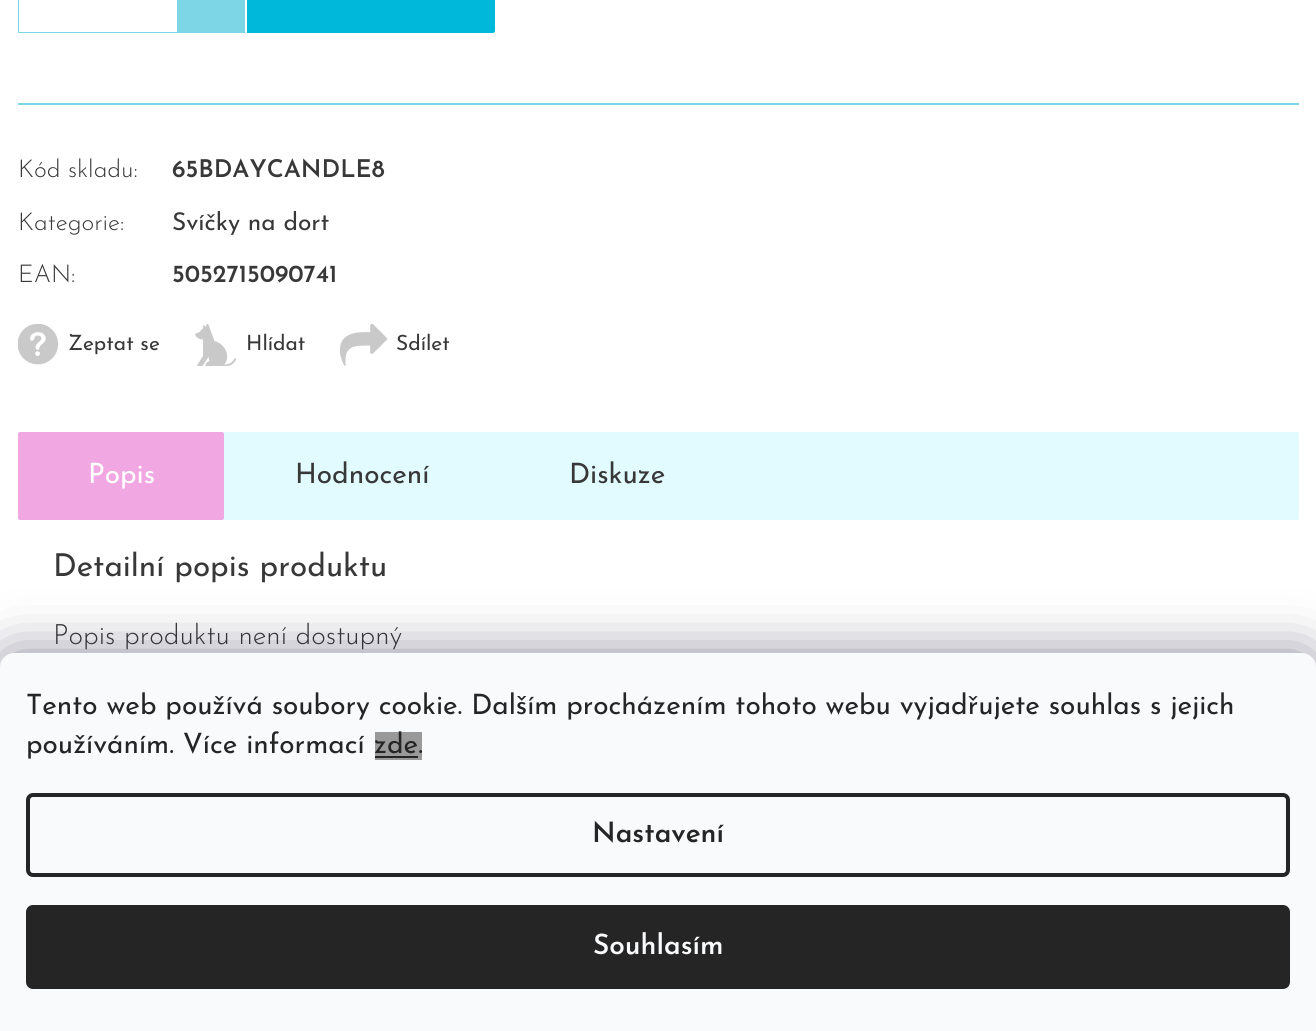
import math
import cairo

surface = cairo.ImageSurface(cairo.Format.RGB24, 1316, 1031)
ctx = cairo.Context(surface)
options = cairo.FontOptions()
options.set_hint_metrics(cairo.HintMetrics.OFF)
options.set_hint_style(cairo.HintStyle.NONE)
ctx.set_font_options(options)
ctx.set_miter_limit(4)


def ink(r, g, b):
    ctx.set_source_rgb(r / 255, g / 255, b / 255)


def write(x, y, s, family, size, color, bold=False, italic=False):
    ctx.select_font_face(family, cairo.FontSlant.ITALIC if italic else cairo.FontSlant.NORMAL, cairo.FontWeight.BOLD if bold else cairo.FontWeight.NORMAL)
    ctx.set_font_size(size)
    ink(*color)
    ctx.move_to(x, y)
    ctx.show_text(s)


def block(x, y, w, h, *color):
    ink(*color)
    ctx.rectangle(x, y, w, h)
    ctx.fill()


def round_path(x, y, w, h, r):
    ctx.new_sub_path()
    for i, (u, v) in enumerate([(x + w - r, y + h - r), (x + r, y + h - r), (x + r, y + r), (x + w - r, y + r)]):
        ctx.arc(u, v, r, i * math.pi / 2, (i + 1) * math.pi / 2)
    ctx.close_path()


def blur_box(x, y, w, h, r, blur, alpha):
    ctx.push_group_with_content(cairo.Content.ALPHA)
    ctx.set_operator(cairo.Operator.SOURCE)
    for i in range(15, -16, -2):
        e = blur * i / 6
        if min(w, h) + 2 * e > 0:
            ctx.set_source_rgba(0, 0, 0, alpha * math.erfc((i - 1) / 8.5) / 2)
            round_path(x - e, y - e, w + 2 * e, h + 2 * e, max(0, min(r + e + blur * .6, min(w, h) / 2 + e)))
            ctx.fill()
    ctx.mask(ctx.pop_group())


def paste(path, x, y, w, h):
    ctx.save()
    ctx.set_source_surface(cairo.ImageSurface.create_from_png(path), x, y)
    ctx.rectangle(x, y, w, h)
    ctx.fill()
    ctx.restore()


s1 = dict(family="Josefin Sans Light", size=24.5, color=(56, 56, 56))
s2 = dict(family="Josefin Sans SemiBold", size=24.5, color=(56, 56, 56))
s3 = dict(family="Josefin Sans", size=24.5, color=(56, 56, 56))
s4 = dict(family="Josefin Sans", size=21, color=(56, 56, 56))
s5 = dict(family="Josefin Sans", size=28, color=(255, 255, 255))
s6 = dict(family="Josefin Sans", size=28, color=(56, 56, 56))
s7 = dict(family="Josefin Sans", size=31.5, color=(56, 56, 56))
s8 = dict(family="Josefin Sans Light", size=28, color=(56, 56, 56))
s9 = dict(family="Josefin Sans", size=28, color=(37, 37, 37))
s10 = dict(family="Josefin Sans SemiBold", size=28, color=(37, 37, 37))
s11 = dict(family="Josefin Sans SemiBold", size=28, color=(248, 250, 251))

ink(255, 255, 255)
ctx.paint()
ink(124, 214, 230)
ctx.new_path()
ctx.move_to(246, 33)
ctx.line_to(19, 33)
ctx.line_to(18, 33)
ctx.line_to(19, 32)
ctx.line_to(245, 32)
ctx.close_path()
ctx.fill()
ctx.new_path()
ctx.move_to(19, -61)
ctx.line_to(20, -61)
ctx.line_to(18, -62)
ctx.line_to(18, 33)
ctx.line_to(19, 32)
ctx.close_path()
ctx.fill()
block(177, 0, 68, 32, 124, 214, 230)
ink(0, 184, 217)
ctx.new_path()
ctx.move_to(247, -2)
ctx.line_to(493, -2)
ctx.curve_to(494, -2, 495, -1, 495, 0)
ctx.line_to(495, 31)
ctx.curve_to(495, 32, 494, 33, 493, 33)
ctx.line_to(247, 33)
ctx.close_path()
ctx.fill()
block(18, 103, 1281, 2, 124, 214, 230)
write(18, 177, "Kód skladu:", **s1)
write(172, 177, "65BDAYCANDLE8", **s2)
write(18, 230, "Kategorie:", **s1)
write(172, 230, "Svíčky na dort", **s3)
write(18, 282, "EAN:", **s1)
write(172, 282, "5052715090741", **s2)
paste("pic1.png", 18, 324, 41, 41)
write(68, 350, "Zeptat se", **s4)
paste("pic2.png", 195, 324, 41, 42)
write(246, 350, "Hlídat", **s4)
paste("pic3.png", 340, 324, 47, 42)
write(396, 350, "Sdílet", **s4)
ink(225, 251, 255)
round_path(18, 432, 1281, 88, 2)
ctx.fill()
ink(241, 167, 226)
round_path(18, 432, 206, 88, 2)
ctx.fill()
write(88, 483, "Popis", **s5)
write(295, 483, "Hodnocení", **s6)
write(569, 483, "Diskuze", **s6)
write(53, 576, "Detailní popis produktu", **s7)
write(53, 644, "Popis produktu není dostupný", **s8)
ink(27, 25, 57)
blur_box(0, 653, 1316, 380, 14, 26, 0.5)
ink(248, 250, 251)
ctx.new_path()
ctx.move_to(14, 653)
ctx.line_to(1302, 653)
ctx.curve_to(1309.5, 653, 1316, 659.5, 1316, 667)
ctx.line_to(1316, 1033)
ctx.line_to(0, 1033)
ctx.line_to(0, 667)
ctx.curve_to(0, 659.5, 6.5, 653, 14, 653)
ctx.close_path()
ctx.fill()
write(26, 714, "Tento web používá soubory cookie. Dalším procházením tohoto webu vyjadřujete souhlas s jejich", **s9)
write(26, 753, "používáním. Více informací", **s9)
block(375, 732, 47, 28, 153, 153, 153)
write(374, 753, "zde.", **s9)
block(375, 756, 43, 2, 37, 37, 37)
round_path(28, 795, 1260, 80, 5)
ctx.set_line_width(4)
ctx.stroke()
write(592, 842, "Nastavení", **s10)
round_path(26, 905, 1264, 84, 7)
ctx.fill()
write(593, 954, "Souhlasím", **s11)
surface.write_to_png("screenshot.png")
